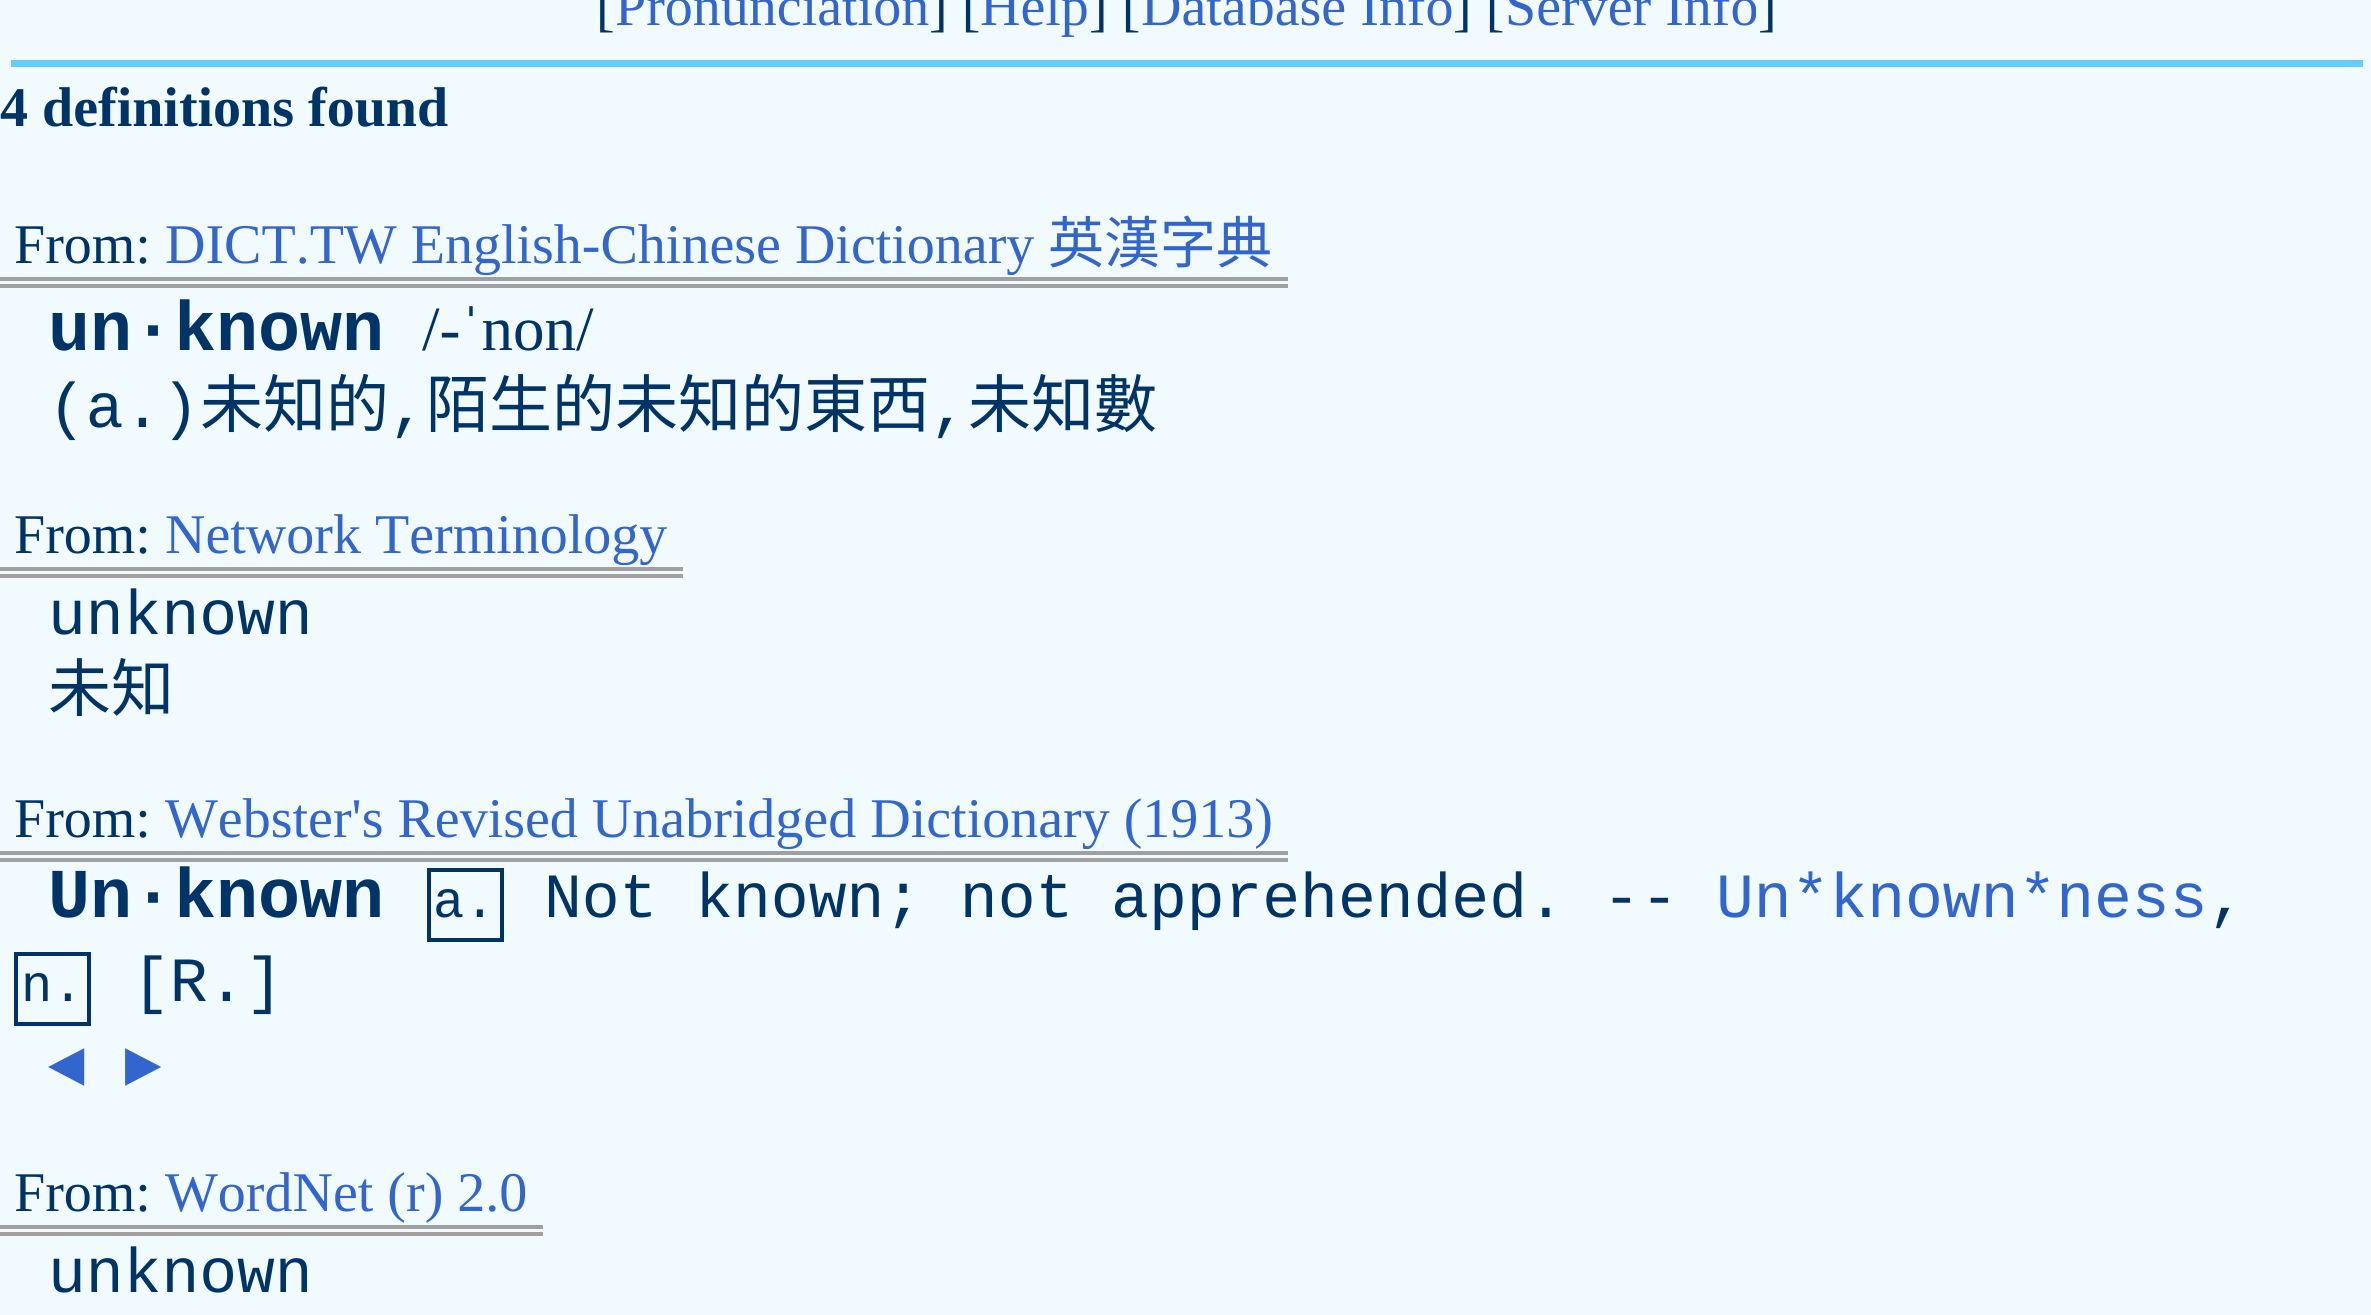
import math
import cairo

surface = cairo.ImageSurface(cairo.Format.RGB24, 2371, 1315)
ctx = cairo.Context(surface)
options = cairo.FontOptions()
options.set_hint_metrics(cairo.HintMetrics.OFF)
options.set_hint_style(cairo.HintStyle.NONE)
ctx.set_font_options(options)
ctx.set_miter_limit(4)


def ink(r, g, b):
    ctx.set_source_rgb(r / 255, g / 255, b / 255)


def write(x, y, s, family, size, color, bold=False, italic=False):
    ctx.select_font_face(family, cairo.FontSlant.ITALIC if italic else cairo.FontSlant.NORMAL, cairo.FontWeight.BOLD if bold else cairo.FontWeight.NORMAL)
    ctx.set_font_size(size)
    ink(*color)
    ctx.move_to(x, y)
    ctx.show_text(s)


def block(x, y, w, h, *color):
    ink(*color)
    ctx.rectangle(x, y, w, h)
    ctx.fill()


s1 = dict(family="Liberation Serif", size=56, color=(0, 51, 102))
s2 = dict(family="Liberation Serif", size=56, color=(51, 102, 204))
s3 = dict(family="Liberation Serif", size=56, color=(0, 51, 102), bold=True)
s4 = dict(family="Noto Sans CJK TC", size=56, color=(51, 102, 204))
s5 = dict(family="Liberation Mono", size=70, color=(0, 51, 102), bold=True)
s6 = dict(family="Liberation Serif", size=63, color=(0, 51, 102))
s7 = dict(family="Liberation Mono", size=63, color=(0, 51, 102))
s8 = dict(family="Noto Sans CJK TC", size=63, color=(0, 51, 102))
s9 = dict(family="Liberation Mono", size=52, color=(0, 51, 102))
s10 = dict(family="Liberation Mono", size=63, color=(51, 102, 204))

ink(240, 250, 255)
ctx.paint()
write(596, 25, "[", **s1)
write(615, 25, "Pronunciation", **s2)
write(929, 25, "] [", **s1)
write(980, 25, "Help", **s2)
write(1089, 25, "] [", **s1)
write(1141, 25, "Database Info", **s2)
write(1453, 25, "] [", **s1)
write(1505, 25, "Server Info", **s2)
write(1758, 25, "]", **s1)
block(11, 60, 2352, 7, 102, 204, 255)
write(0, 126, "4 definitions found", **s3)
write(14, 263, "From:", **s1)
write(165, 263, "DICT.TW English-Chinese Dictionary", **s2)
block(0, 277, 1288, 4, 160, 160, 160)
block(0, 284, 1288, 4, 160, 160, 160)
write(1048, 263, "英漢字典", **s4)
write(48, 350, "un·known", **s5)
write(422, 350, "/-ˈnon/", **s6)
write(48, 427, "(a.)", **s7)
write(200, 427, "未知的", **s8)
write(389, 427, ",", **s7)
write(426, 427, "陌生的未知的東西", **s8)
write(930, 427, ",", **s7)
write(968, 427, "未知數", **s8)
write(14, 553, "From:", **s1)
write(165, 553, "Network Terminology", **s2)
block(0, 567, 683, 4, 160, 160, 160)
block(0, 574, 683, 4, 160, 160, 160)
write(48, 634, "unknown", **s7)
write(48, 711, "未知", **s8)
write(14, 837, "From:", **s1)
write(165, 837, "Webster's Revised Unabridged Dictionary (1913)", **s2)
block(0, 851, 1288, 4, 160, 160, 160)
block(0, 858, 1288, 4, 160, 160, 160)
write(48, 917, "Un·known", **s5)
ctx.rectangle(429, 870, 73, 70)
ctx.set_line_width(4)
ctx.stroke()
write(433, 917, "a.", **s9)
write(544, 917, "Not known; not apprehended. --", **s7)
write(1716, 917, "Un*known*ness", **s10)
write(2208, 917, ",", **s7)
ctx.rectangle(16, 954, 73, 70)
ctx.stroke()
write(21, 1001, "n.", **s9)
write(132, 1001, "[R.]", **s7)
write(48, 1085, "◄ ►", **s10)
write(14, 1211, "From:", **s1)
write(165, 1211, "WordNet (r) 2.0", **s2)
block(0, 1225, 543, 4, 160, 160, 160)
block(0, 1232, 543, 4, 160, 160, 160)
write(48, 1292, "unknown", **s7)
surface.write_to_png("screenshot.png")
